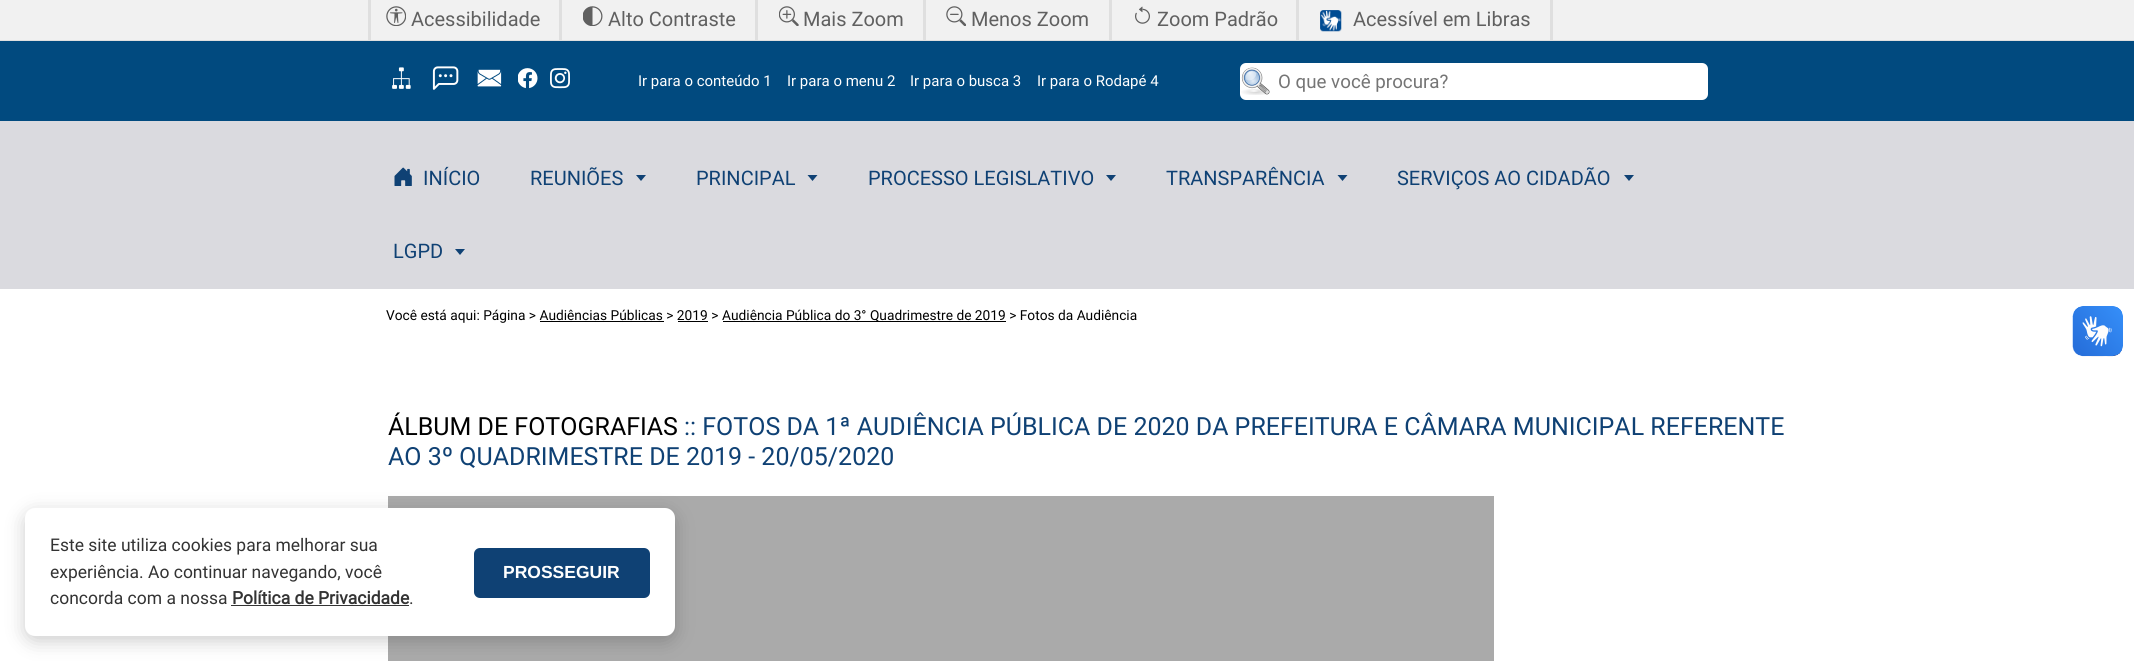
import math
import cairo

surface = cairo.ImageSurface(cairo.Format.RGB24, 2134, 661)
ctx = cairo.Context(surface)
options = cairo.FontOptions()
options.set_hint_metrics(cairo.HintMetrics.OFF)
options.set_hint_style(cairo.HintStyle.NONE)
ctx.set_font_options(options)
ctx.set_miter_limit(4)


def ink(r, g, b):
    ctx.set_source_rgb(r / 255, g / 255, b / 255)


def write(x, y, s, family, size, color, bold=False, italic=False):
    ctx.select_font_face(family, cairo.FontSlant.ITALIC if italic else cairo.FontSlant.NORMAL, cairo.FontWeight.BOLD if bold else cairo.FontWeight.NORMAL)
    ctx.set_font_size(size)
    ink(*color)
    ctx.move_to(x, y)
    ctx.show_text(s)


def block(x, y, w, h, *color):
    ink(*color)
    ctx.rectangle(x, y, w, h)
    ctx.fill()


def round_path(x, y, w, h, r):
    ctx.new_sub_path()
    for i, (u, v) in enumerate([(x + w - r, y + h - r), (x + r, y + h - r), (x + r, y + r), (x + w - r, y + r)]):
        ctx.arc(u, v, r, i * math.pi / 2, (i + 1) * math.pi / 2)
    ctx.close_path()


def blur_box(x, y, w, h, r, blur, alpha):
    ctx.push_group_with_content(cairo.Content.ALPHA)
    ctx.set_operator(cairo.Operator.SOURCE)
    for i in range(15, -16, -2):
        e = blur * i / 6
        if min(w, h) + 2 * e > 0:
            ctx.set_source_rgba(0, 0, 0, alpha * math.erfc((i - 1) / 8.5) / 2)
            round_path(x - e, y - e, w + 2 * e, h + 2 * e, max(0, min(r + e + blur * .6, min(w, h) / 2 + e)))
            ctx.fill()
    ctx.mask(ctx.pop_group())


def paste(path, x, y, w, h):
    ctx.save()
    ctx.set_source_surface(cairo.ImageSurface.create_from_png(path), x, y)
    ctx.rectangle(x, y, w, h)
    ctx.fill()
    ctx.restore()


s1 = dict(family="Roboto", size=20, color=(96, 96, 96))
s2 = dict(family="Roboto", size=15, color=(255, 255, 255))
s3 = dict(family="Roboto", size=18.75, color=(117, 117, 117))
s4 = dict(family="Roboto", size=20, color=(15, 65, 116))
s5 = dict(family="Roboto", size=13.75, color=(0, 0, 0))
s6 = dict(family="Roboto", size=25, color=(0, 0, 0))
s7 = dict(family="Roboto", size=25, color=(15, 65, 116))
s8 = dict(family="Roboto", size=17.5, color=(51, 51, 51))
s9 = dict(family="Roboto", size=17.5, color=(51, 51, 51), bold=True)
s10 = dict(family="Liberation Sans", size=17.5, color=(255, 255, 255), bold=True)

ink(255, 255, 255)
ctx.paint()
block(0, 0, 2134, 40, 241, 241, 241)
block(0, 40, 2134, 1, 223, 223, 223)
block(559, 0, 3, 40, 223, 223, 223)
block(368, 0, 3, 40, 223, 223, 223)
paste("pic1.png", 386, 6, 20, 20)
write(411, 26, "Acessibilidade", **s1)
block(755, 0, 3, 40, 223, 223, 223)
paste("pic2.png", 583, 6, 20, 20)
write(608, 26, "Alto Contraste", **s1)
block(923, 0, 3, 40, 223, 223, 223)
paste("pic3.png", 779, 6, 20, 20)
write(803, 26, "Mais Zoom", **s1)
block(1109, 0, 3, 40, 223, 223, 223)
paste("pic4.png", 946, 6, 20, 20)
write(971, 26, "Menos Zoom", **s1)
block(1296, 0, 3, 40, 223, 223, 223)
paste("pic5.png", 1135, 6, 15, 18)
write(1157, 26, "Zoom Padrão", **s1)
block(1550, 0, 3, 40, 223, 223, 223)
paste("pic6.png", 1320, 10, 22, 22)
write(1353, 26, "Acessível em Libras", **s1)
block(0, 41, 2134, 80, 1, 74, 127)
paste("pic7.png", 392, 67, 19, 22)
paste("pic8.png", 432, 66, 27, 24)
paste("pic9.png", 477, 69, 25, 18)
paste("pic10.png", 518, 68, 20, 21)
paste("pic11.png", 550, 68, 20, 21)
write(638, 86, "Ir para o conteúdo 1", **s2)
write(787, 86, "Ir para o menu 2", **s2)
write(910, 86, "Ir para o busca 3", **s2)
write(1037, 86, "Ir para o Rodapé 4", **s2)
round_path(1240, 63, 468, 37, 6)
ctx.fill()
paste("pic12.png", 1241, 67, 29, 28)
write(1278, 88, "O que você procura?", **s3)
block(0, 121, 2134, 168, 218, 218, 223)
paste("pic13.png", 394, 167, 18, 19)
write(423, 185, "INÍCIO", **s4)
write(530, 185, "REUNIÕES", **s4)
ctx.new_path()
ctx.move_to(636, 175)
ctx.line_to(646, 175)
ctx.line_to(641, 181)
ctx.close_path()
ctx.fill()
write(696, 185, "PRINCIPAL", **s4)
ctx.new_path()
ctx.move_to(807.5, 175)
ctx.line_to(817.5, 175)
ctx.line_to(812.5, 181)
ctx.close_path()
ctx.fill()
write(868, 185, "PROCESSO LEGISLATIVO", **s4)
ctx.new_path()
ctx.move_to(1106, 175)
ctx.line_to(1116, 175)
ctx.line_to(1111, 181)
ctx.close_path()
ctx.fill()
write(1166, 185, "TRANSPARÊNCIA", **s4)
ctx.new_path()
ctx.move_to(1337.5, 175)
ctx.line_to(1347.5, 175)
ctx.line_to(1342.5, 181)
ctx.close_path()
ctx.fill()
write(1397, 185, "SERVIÇOS AO CIDADÃO", **s4)
ctx.new_path()
ctx.move_to(1624, 175)
ctx.line_to(1634, 175)
ctx.line_to(1629, 181)
ctx.close_path()
ctx.fill()
write(393, 258, "LGPD", **s4)
ctx.new_path()
ctx.move_to(455, 249)
ctx.line_to(465, 249)
ctx.line_to(460, 255)
ctx.close_path()
ctx.fill()
write(386, 320, "Você está aqui: Página > Audiências Públicas > 2019 >", **s5)
block(540, 321, 124, 1, 0, 0, 0)
block(678, 321, 30, 1, 0, 0, 0)
block(723, 321, 283, 1, 0, 0, 0)
write(722, 320, "Audiência Pública do 3° Quadrimestre de 2019 > Fotos da Audiência", **s5)
write(388, 435, "ÁLBUM DE FOTOGRAFIAS", **s6)
write(684, 435, ":: FOTOS DA 1ª AUDIÊNCIA PÚBLICA DE 2020 DA PREFEITURA E CÂMARA MUNICIPAL REFERENTE", **s7)
write(388, 465, "AO 3º QUADRIMESTRE DE 2019 - 20/05/2020", **s7)
block(388, 496, 1106, 165, 170, 170, 170)
paste("pic14.png", 2072, 306, 51, 51)
paste("pic15.png", 2073, 306, 50, 50)
ink(0, 0, 0)
blur_box(25, 513, 650, 128, 10, 9.5, 0.2)
ink(255, 255, 255)
round_path(25, 508, 650, 128, 10)
ctx.fill()
write(50, 551, "Este site utiliza cookies para melhorar sua", **s8)
write(50, 578, "experiência. Ao continuar navegando, você", **s8)
write(50, 604, "concorda com a nossa", **s8)
write(232, 604, "Política de Privacidade", **s9)
block(231, 605, 178, 1, 51, 51, 51)
write(409, 604, ".", **s8)
ink(15, 65, 116)
round_path(474, 548, 176, 50, 6)
ctx.fill()
write(503, 578, "PROSSEGUIR", **s10)
surface.write_to_png("screenshot.png")
